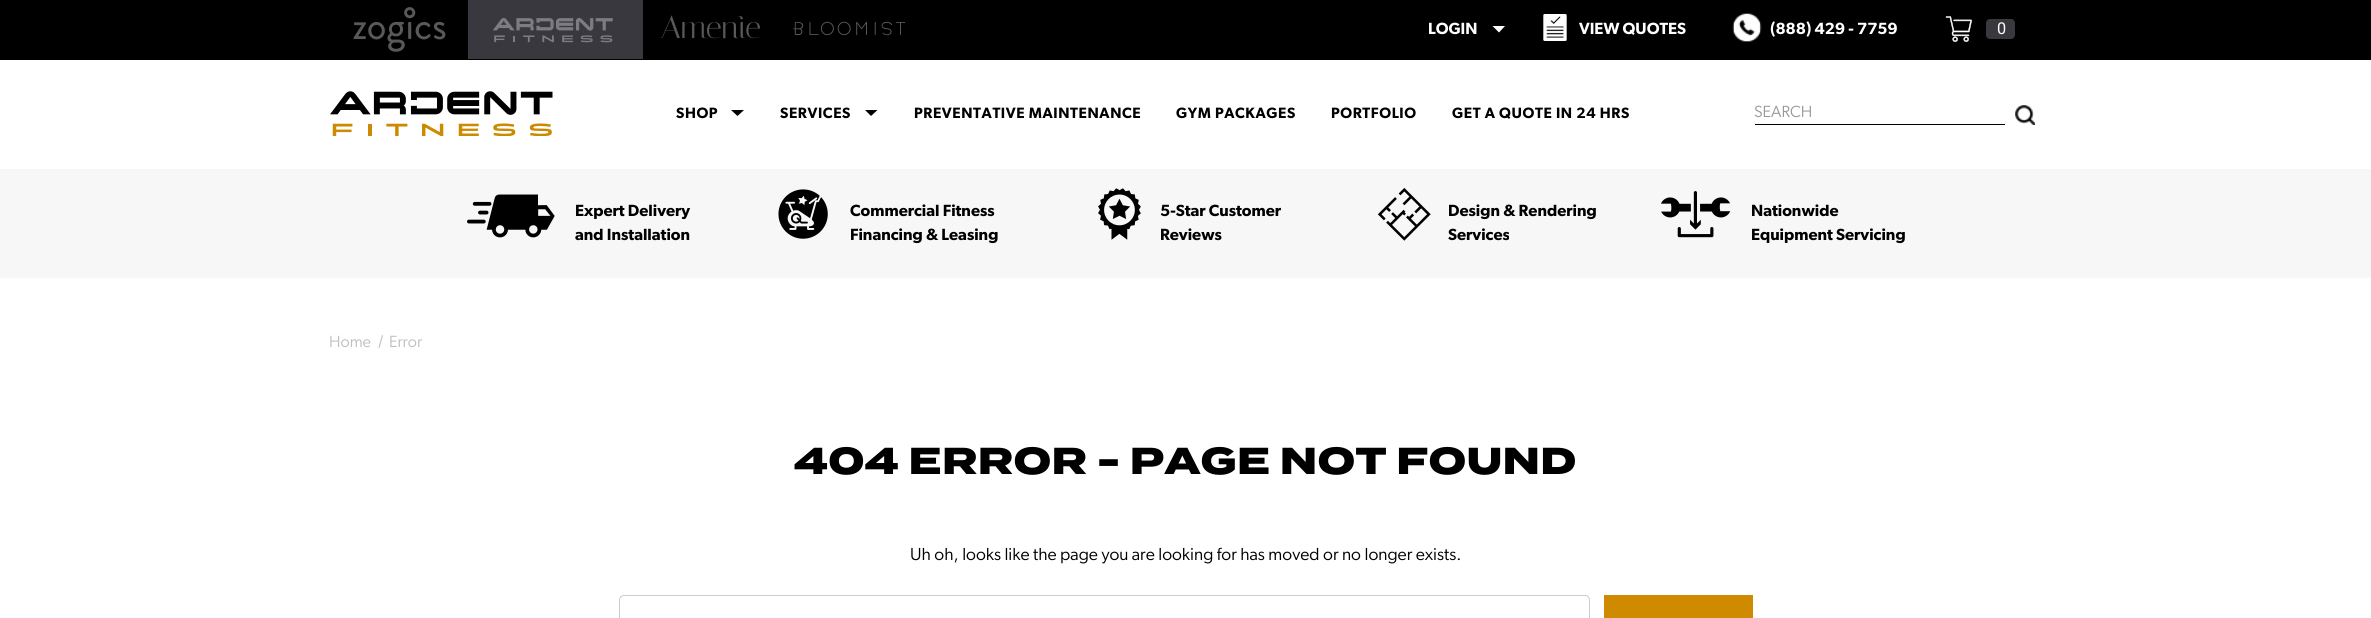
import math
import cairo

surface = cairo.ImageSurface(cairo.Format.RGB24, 2371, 618)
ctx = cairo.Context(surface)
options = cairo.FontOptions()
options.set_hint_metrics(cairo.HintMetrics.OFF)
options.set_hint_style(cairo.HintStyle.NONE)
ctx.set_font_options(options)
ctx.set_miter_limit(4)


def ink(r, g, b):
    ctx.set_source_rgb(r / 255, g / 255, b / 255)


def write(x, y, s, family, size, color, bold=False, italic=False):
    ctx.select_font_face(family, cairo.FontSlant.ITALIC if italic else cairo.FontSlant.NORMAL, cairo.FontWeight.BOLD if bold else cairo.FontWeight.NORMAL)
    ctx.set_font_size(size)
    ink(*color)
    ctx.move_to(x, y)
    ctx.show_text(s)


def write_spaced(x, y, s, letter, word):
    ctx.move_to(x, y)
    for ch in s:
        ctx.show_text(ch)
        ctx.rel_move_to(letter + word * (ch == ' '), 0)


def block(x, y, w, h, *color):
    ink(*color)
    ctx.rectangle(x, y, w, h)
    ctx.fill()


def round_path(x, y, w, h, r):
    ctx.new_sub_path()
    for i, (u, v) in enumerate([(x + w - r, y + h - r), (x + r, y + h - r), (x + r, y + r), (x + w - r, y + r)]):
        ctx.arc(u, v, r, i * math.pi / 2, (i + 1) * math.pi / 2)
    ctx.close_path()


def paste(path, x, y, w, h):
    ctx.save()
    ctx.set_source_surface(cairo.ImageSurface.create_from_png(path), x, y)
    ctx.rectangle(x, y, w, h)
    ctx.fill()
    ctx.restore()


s1 = dict(family="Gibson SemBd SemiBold", size=16.25, color=(255, 255, 255))
s2 = dict(family="Roboto", size=16.25, color=(255, 255, 255))
s3 = dict(family="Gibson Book", size=16.25, color=(153, 153, 153))
s4 = dict(family="Gibson SemBd SemiBold", size=16.25, color=(0, 0, 0))
s5 = dict(family="Gibson Book", size=16.25, color=(191, 191, 191))
s6 = dict(family="Gibson Book", size=17.5, color=(0, 0, 0))

ink(255, 255, 255)
ctx.paint()
block(0, 0, 2371, 60, 0, 0, 0)
paste("pic1.png", 353, 7, 93, 45)
block(468, 0, 175, 59, 56, 56, 62)
paste("pic2.png", 493, 17, 120, 26)
paste("pic3.png", 660, 15, 100, 24)
paste("pic4.png", 793, 21, 113, 15)
write(1428, 34, "LOGIN", **s1)
ctx.new_path()
ctx.move_to(1492.5, 26)
ctx.line_to(1505, 26)
ctx.line_to(1499, 32.5)
ctx.close_path()
ctx.fill()
paste("pic5.png", 1543, 14, 24, 27)
write(1579, 34, "VIEW QUOTES", **s1)
paste("pic6.png", 1732, 13, 30, 29)
write(1770, 34, "(888) 429 - 7759", **s1)
paste("pic7.png", 1945, 16, 27, 26)
ink(56, 56, 62)
round_path(1986, 19, 29, 20, 4)
ctx.fill()
write(1997, 34, "0", **s2)
paste("pic8.png", 330, 91, 223, 45)
ctx.select_font_face("Gibson SemBd SemiBold")
ctx.set_font_size(15)
ink(0, 0, 0)
write_spaced(676, 118, "SHOP", 0.6, 0)
ctx.new_path()
ctx.move_to(731, 110)
ctx.line_to(744, 110)
ctx.line_to(737.5, 116)
ctx.close_path()
ctx.fill()
write_spaced(780, 118, "SERVICES", 0.6, 0)
ctx.new_path()
ctx.move_to(865, 110)
ctx.line_to(877.5, 110)
ctx.line_to(871, 116)
ctx.close_path()
ctx.fill()
write_spaced(914, 118, "PREVENTATIVE MAINTENANCE", 0.6, 0)
write_spaced(1176, 118, "GYM PACKAGES", 0.6, 0)
write_spaced(1331, 118, "PORTFOLIO", 0.6, 0)
write_spaced(1452, 118, "GET A QUOTE IN 24 HRS", 0.6, 0)
block(1755, 124, 250, 1, 0, 0, 0)
write(1754, 117, "SEARCH", **s3)
paste("pic9.png", 2015, 105, 20, 20)
block(0, 169, 2371, 109, 247, 247, 247)
paste("pic10.png", 467, 194, 88, 44)
write(575, 216, "Expert Delivery", **s4)
write(575, 240, "and Installation", **s4)
paste("pic11.png", 778, 189, 50, 50)
write(850, 216, "Commercial Fitness", **s4)
write(850, 240, "Financing & Leasing", **s4)
paste("pic12.png", 1098, 188, 43, 52)
write(1160, 216, "5-Star Customer", **s4)
write(1160, 240, "Reviews", **s4)
paste("pic13.png", 1377, 188, 54, 53)
write(1448, 216, "Design & Rendering", **s4)
write(1448, 240, "Services", **s4)
paste("pic14.png", 1661, 191, 70, 47)
write(1751, 216, "Nationwide", **s4)
write(1751, 240, "Equipment Servicing", **s4)
write(329, 347, "Home", **s5)
ctx.new_path()
ctx.move_to(382, 335)
ctx.line_to(383, 335.5)
ctx.line_to(379.5, 348)
ctx.line_to(378.5, 347.5)
ctx.close_path()
ctx.fill()
write(389, 347, "Error", **s5)
ctx.select_font_face("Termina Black")
ctx.set_font_size(37.5)
ink(0, 0, 0)
write_spaced(794, 474, "404 ERROR - PAGE NOT FOUND", 0.3, 0)
write(910, 560, "Uh oh, looks like the page you are looking for has moved or no longer exists.", **s6)
round_path(619.5, 595.5, 970, 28, 4.5)
ink(204, 204, 204)
ctx.set_line_width(1)
ctx.stroke()
block(1604, 595, 149, 23, 207, 138, 0)
surface.write_to_png("screenshot.png")
